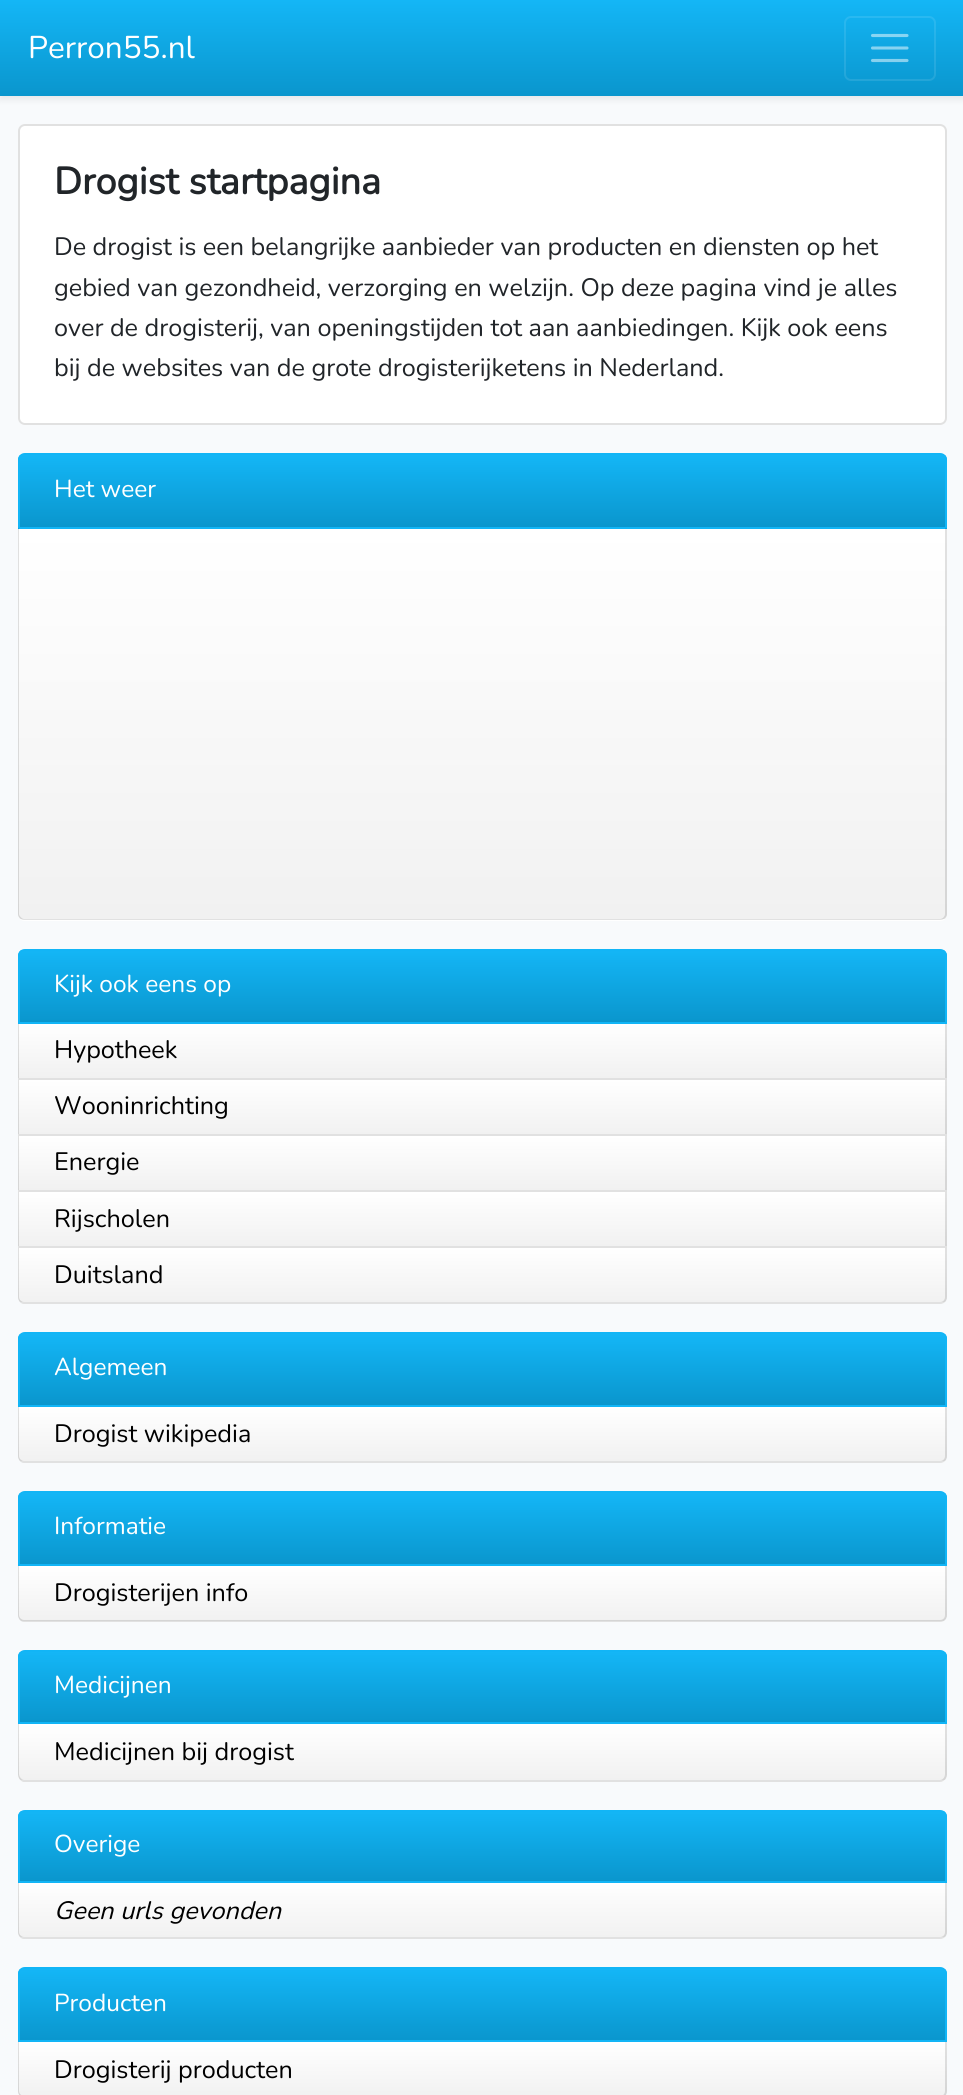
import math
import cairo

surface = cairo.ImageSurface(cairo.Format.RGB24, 963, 2095)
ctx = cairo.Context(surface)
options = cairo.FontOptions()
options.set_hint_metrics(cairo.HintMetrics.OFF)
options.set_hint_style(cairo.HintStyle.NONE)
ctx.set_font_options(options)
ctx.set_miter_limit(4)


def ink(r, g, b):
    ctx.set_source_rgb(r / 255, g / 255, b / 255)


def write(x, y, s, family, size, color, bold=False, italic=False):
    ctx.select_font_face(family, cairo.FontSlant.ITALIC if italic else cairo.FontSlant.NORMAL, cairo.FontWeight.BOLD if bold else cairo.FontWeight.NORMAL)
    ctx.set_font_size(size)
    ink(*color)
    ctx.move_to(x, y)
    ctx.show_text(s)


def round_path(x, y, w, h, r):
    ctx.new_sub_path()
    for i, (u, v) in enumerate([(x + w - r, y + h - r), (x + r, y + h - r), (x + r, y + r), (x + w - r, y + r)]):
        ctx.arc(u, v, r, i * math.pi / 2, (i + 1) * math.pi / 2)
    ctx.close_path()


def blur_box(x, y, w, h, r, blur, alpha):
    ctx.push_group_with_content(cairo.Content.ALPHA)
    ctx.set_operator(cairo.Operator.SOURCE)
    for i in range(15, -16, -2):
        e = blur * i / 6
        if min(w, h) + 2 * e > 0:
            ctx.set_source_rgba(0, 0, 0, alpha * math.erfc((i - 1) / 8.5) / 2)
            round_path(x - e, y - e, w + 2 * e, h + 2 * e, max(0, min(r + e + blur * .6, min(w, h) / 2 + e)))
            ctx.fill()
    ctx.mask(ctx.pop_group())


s1 = dict(family="Nunito ExtraLight", size=31.5, color=(255, 255, 255))
s2 = dict(family="Nunito", size=37.75, color=(33, 37, 41), bold=True)
s3 = dict(family="Nunito ExtraLight", size=25.2, color=(33, 37, 41))
s4 = dict(family="Nunito ExtraLight", size=24.5, color=(255, 255, 255))
s5 = dict(family="Nunito ExtraLight", size=25.2, color=(0, 0, 0))
s6 = dict(family="Nunito ExtraLight", size=25.2, color=(0, 0, 0), italic=True)

ink(248, 250, 252)
ctx.paint()
ink(0, 0, 0)
blur_box(0, 4, 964, 96, 0, 3.5, 0.07)
gradient = cairo.LinearGradient(482, 0, 482, 96)
gradient.add_color_stop_rgba(0, 0.078, 0.714, 0.965, 1)
gradient.add_color_stop_rgba(1, 0.039, 0.588, 0.804, 1)
ctx.set_source(gradient)
ctx.rectangle(0, 0, 963, 96)
ctx.fill()
write(28, 58, "Perron55.nl", **s1)
round_path(845, 17, 90, 63, 6)
ctx.set_source_rgba(1, 1, 1, 0.1)
ctx.stroke()
ctx.new_path()
ctx.move_to(872.5, 35.5)
ctx.line_to(907, 35.5)
ctx.move_to(872.5, 48)
ctx.line_to(907, 48)
ctx.move_to(872.5, 60.5)
ctx.line_to(907, 60.5)
ctx.set_source_rgba(1, 1, 1, 0.5)
ctx.set_line_width(3.1)
ctx.set_line_cap(cairo.LineCap.ROUND)
ctx.stroke()
ink(255, 255, 255)
round_path(18, 124, 929, 301, 7)
ctx.fill()
round_path(19, 125, 927, 299, 6)
ctx.set_source_rgba(0, 0, 0, 0.12)
ctx.set_line_width(2)
ctx.set_line_cap(cairo.LineCap.BUTT)
ctx.stroke()
write(54, 194, "Drogist startpagina", **s2)
write(54, 255, "De drogist is een belangrijke aanbieder van producten en diensten op het", **s3)
write(54, 296, "gebied van gezondheid, verzorging en welzijn. Op deze pagina vind je alles", **s3)
write(54, 336, "over de drogisterij, van openingstijden tot aan aanbiedingen. Kijk ook eens", **s3)
write(54, 376, "bij de websites van de grote drogisterijketens in Nederland.", **s3)
ctx.save()
ctx.new_path()
ctx.move_to(25, 453)
ctx.line_to(940, 453)
ctx.curve_to(944, 453, 947, 456, 947, 460)
ctx.line_to(947, 529)
ctx.line_to(18, 529)
ctx.line_to(18, 460)
ctx.curve_to(18, 456, 21, 453, 25, 453)
ctx.close_path()
ctx.clip()
gradient = cairo.LinearGradient(482, 455, 482, 527)
gradient.add_color_stop_rgba(0, 0.078, 0.714, 0.965, 1)
gradient.add_color_stop_rgba(1, 0.039, 0.588, 0.804, 1)
ctx.set_source(gradient)
ctx.rectangle(18, 455, 929, 72)
ctx.fill()
ctx.restore()
ctx.new_path()
ctx.move_to(25, 454)
ctx.line_to(940, 454)
ctx.curve_to(943.5, 454, 946, 456.5, 946, 460)
ctx.line_to(946, 528)
ctx.line_to(19, 528)
ctx.line_to(19, 460)
ctx.curve_to(19, 456.5, 21.5, 454, 25, 454)
ctx.close_path()
ink(18, 181, 246)
ctx.stroke()
write(54, 497, "Het weer", **s4)
ctx.save()
ctx.new_path()
ctx.move_to(18, 529)
ctx.line_to(947, 529)
ctx.line_to(947, 914)
ctx.curve_to(947, 918, 944, 921, 940, 921)
ctx.line_to(25, 921)
ctx.curve_to(21, 921, 18, 918, 18, 914)
ctx.close_path()
ctx.clip()
gradient = cairo.LinearGradient(482, 529, 482, 919)
gradient.add_color_stop_rgba(0, 1, 1, 1, 1)
gradient.add_color_stop_rgba(1, 0.945, 0.945, 0.945, 1)
ctx.set_source(gradient)
ctx.rectangle(18, 529, 929, 390)
ctx.fill()
gradient = cairo.LinearGradient(482, 919, 482, 1309)
gradient.add_color_stop_rgba(0, 1, 1, 1, 1)
gradient.add_color_stop_rgba(1, 0.945, 0.945, 0.945, 1)
ctx.set_source(gradient)
ctx.rectangle(18, 919, 929, 2)
ctx.fill()
ctx.restore()
ctx.set_source_rgba(0, 0, 0, 0.12)
ctx.set_fill_rule(cairo.FillRule.EVEN_ODD)
ctx.new_path()
ctx.move_to(18, 528)
ctx.line_to(947, 528)
ctx.line_to(947, 914)
ctx.curve_to(947, 917, 944, 920, 940, 920)
ctx.line_to(24, 920)
ctx.curve_to(21, 920, 18, 917, 18, 914)
ctx.close_path()
ctx.move_to(19, 528)
ctx.line_to(945, 528)
ctx.line_to(945, 914)
ctx.curve_to(945, 916, 943, 919, 940, 919)
ctx.line_to(24, 919)
ctx.curve_to(22, 919, 19, 916, 19, 914)
ctx.close_path()
ctx.fill()
ctx.save()
ctx.set_fill_rule(cairo.FillRule.WINDING)
ctx.new_path()
ctx.move_to(25, 949)
ctx.line_to(940, 949)
ctx.curve_to(944, 949, 947, 952, 947, 956)
ctx.line_to(947, 1024)
ctx.line_to(18, 1024)
ctx.line_to(18, 956)
ctx.curve_to(18, 952, 21, 949, 25, 949)
ctx.close_path()
ctx.clip()
gradient = cairo.LinearGradient(482, 950, 482, 1022)
gradient.add_color_stop_rgba(0, 0.078, 0.714, 0.965, 1)
gradient.add_color_stop_rgba(1, 0.039, 0.588, 0.804, 1)
ctx.set_source(gradient)
ctx.rectangle(18, 950, 929, 72)
ctx.fill()
ctx.restore()
ctx.new_path()
ctx.move_to(25, 950)
ctx.line_to(940, 950)
ctx.curve_to(943.5, 950, 946, 952.5, 946, 956)
ctx.line_to(946, 1023)
ctx.line_to(19, 1023)
ctx.line_to(19, 956)
ctx.curve_to(19, 952.5, 21.5, 950, 25, 950)
ctx.close_path()
ink(18, 181, 246)
ctx.stroke()
write(54, 992, "Kijk ook eens op", **s4)
gradient = cairo.LinearGradient(482, 1024, 482, 1078)
gradient.add_color_stop_rgba(0, 1, 1, 1, 1)
gradient.add_color_stop_rgba(1, 0.945, 0.945, 0.945, 1)
ctx.set_source(gradient)
ctx.rectangle(18, 1024, 929, 54)
ctx.fill()
gradient = cairo.LinearGradient(482, 1078, 482, 1132)
gradient.add_color_stop_rgba(0, 1, 1, 1, 1)
gradient.add_color_stop_rgba(1, 0.945, 0.945, 0.945, 1)
ctx.set_source(gradient)
ctx.rectangle(18, 1078, 929, 2)
ctx.fill()
ctx.set_source_rgba(0, 0, 0, 0.12)
ctx.set_fill_rule(cairo.FillRule.WINDING)
ctx.new_path()
ctx.move_to(947, 1024)
ctx.line_to(947, 1080)
ctx.line_to(945, 1078)
ctx.line_to(945, 1024)
ctx.close_path()
ctx.fill()
ctx.new_path()
ctx.move_to(947, 1080)
ctx.line_to(18, 1080)
ctx.line_to(19, 1078)
ctx.line_to(945, 1078)
ctx.close_path()
ctx.fill()
ctx.new_path()
ctx.move_to(18, 1080)
ctx.line_to(18, 1024)
ctx.line_to(19, 1024)
ctx.line_to(19, 1078)
ctx.close_path()
ctx.fill()
write(54, 1058, "Hypotheek", **s5)
gradient = cairo.LinearGradient(482, 1080, 482, 1134)
gradient.add_color_stop_rgba(0, 1, 1, 1, 1)
gradient.add_color_stop_rgba(1, 0.945, 0.945, 0.945, 1)
ctx.set_source(gradient)
ctx.rectangle(18, 1080, 929, 54)
ctx.fill()
gradient = cairo.LinearGradient(482, 1134, 482, 1188)
gradient.add_color_stop_rgba(0, 1, 1, 1, 1)
gradient.add_color_stop_rgba(1, 0.945, 0.945, 0.945, 1)
ctx.set_source(gradient)
ctx.rectangle(18, 1134, 929, 2)
ctx.fill()
ctx.set_source_rgba(0, 0, 0, 0.12)
ctx.new_path()
ctx.move_to(947, 1080)
ctx.line_to(947, 1136)
ctx.line_to(945, 1134)
ctx.line_to(945, 1080)
ctx.close_path()
ctx.fill()
ctx.new_path()
ctx.move_to(947, 1136)
ctx.line_to(18, 1136)
ctx.line_to(19, 1134)
ctx.line_to(945, 1134)
ctx.close_path()
ctx.fill()
ctx.new_path()
ctx.move_to(18, 1136)
ctx.line_to(18, 1080)
ctx.line_to(19, 1080)
ctx.line_to(19, 1134)
ctx.close_path()
ctx.fill()
write(54, 1114, "Wooninrichting", **s5)
gradient = cairo.LinearGradient(482, 1136, 482, 1190)
gradient.add_color_stop_rgba(0, 1, 1, 1, 1)
gradient.add_color_stop_rgba(1, 0.945, 0.945, 0.945, 1)
ctx.set_source(gradient)
ctx.rectangle(18, 1136, 929, 54)
ctx.fill()
gradient = cairo.LinearGradient(482, 1190, 482, 1244)
gradient.add_color_stop_rgba(0, 1, 1, 1, 1)
gradient.add_color_stop_rgba(1, 0.945, 0.945, 0.945, 1)
ctx.set_source(gradient)
ctx.rectangle(18, 1190, 929, 2)
ctx.fill()
ctx.set_source_rgba(0, 0, 0, 0.12)
ctx.new_path()
ctx.move_to(947, 1136)
ctx.line_to(947, 1192)
ctx.line_to(945, 1190)
ctx.line_to(945, 1136)
ctx.close_path()
ctx.fill()
ctx.new_path()
ctx.move_to(947, 1192)
ctx.line_to(18, 1192)
ctx.line_to(19, 1190)
ctx.line_to(945, 1190)
ctx.close_path()
ctx.fill()
ctx.new_path()
ctx.move_to(18, 1192)
ctx.line_to(18, 1136)
ctx.line_to(19, 1136)
ctx.line_to(19, 1190)
ctx.close_path()
ctx.fill()
write(54, 1170, "Energie", **s5)
gradient = cairo.LinearGradient(482, 1192, 482, 1246)
gradient.add_color_stop_rgba(0, 1, 1, 1, 1)
gradient.add_color_stop_rgba(1, 0.945, 0.945, 0.945, 1)
ctx.set_source(gradient)
ctx.rectangle(18, 1192, 929, 54)
ctx.fill()
gradient = cairo.LinearGradient(482, 1246, 482, 1300)
gradient.add_color_stop_rgba(0, 1, 1, 1, 1)
gradient.add_color_stop_rgba(1, 0.945, 0.945, 0.945, 1)
ctx.set_source(gradient)
ctx.rectangle(18, 1246, 929, 2)
ctx.fill()
ctx.set_source_rgba(0, 0, 0, 0.12)
ctx.new_path()
ctx.move_to(947, 1192)
ctx.line_to(947, 1248)
ctx.line_to(945, 1246)
ctx.line_to(945, 1192)
ctx.close_path()
ctx.fill()
ctx.new_path()
ctx.move_to(947, 1248)
ctx.line_to(18, 1248)
ctx.line_to(19, 1246)
ctx.line_to(945, 1246)
ctx.close_path()
ctx.fill()
ctx.new_path()
ctx.move_to(18, 1248)
ctx.line_to(18, 1192)
ctx.line_to(19, 1192)
ctx.line_to(19, 1246)
ctx.close_path()
ctx.fill()
write(54, 1227, "Rijscholen", **s5)
ctx.save()
ctx.new_path()
ctx.move_to(18, 1248)
ctx.line_to(947, 1248)
ctx.line_to(947, 1297)
ctx.curve_to(947, 1301, 944, 1304, 940, 1304)
ctx.line_to(25, 1304)
ctx.curve_to(21, 1304, 18, 1301, 18, 1297)
ctx.close_path()
ctx.clip()
gradient = cairo.LinearGradient(482, 1248, 482, 1302)
gradient.add_color_stop_rgba(0, 1, 1, 1, 1)
gradient.add_color_stop_rgba(1, 0.945, 0.945, 0.945, 1)
ctx.set_source(gradient)
ctx.rectangle(18, 1248, 929, 54)
ctx.fill()
gradient = cairo.LinearGradient(482, 1302, 482, 1356)
gradient.add_color_stop_rgba(0, 1, 1, 1, 1)
gradient.add_color_stop_rgba(1, 0.945, 0.945, 0.945, 1)
ctx.set_source(gradient)
ctx.rectangle(18, 1302, 929, 2)
ctx.fill()
ctx.restore()
ctx.set_source_rgba(0, 0, 0, 0.12)
ctx.set_fill_rule(cairo.FillRule.EVEN_ODD)
ctx.new_path()
ctx.move_to(18, 1248)
ctx.line_to(947, 1248)
ctx.line_to(947, 1297)
ctx.curve_to(947, 1301, 944, 1304, 940, 1304)
ctx.line_to(24, 1304)
ctx.curve_to(21, 1304, 18, 1301, 18, 1297)
ctx.close_path()
ctx.move_to(19, 1248)
ctx.line_to(945, 1248)
ctx.line_to(945, 1297)
ctx.curve_to(945, 1300, 943, 1302, 940, 1302)
ctx.line_to(24, 1302)
ctx.curve_to(22, 1302, 19, 1300, 19, 1297)
ctx.close_path()
ctx.fill()
write(54, 1283, "Duitsland", **s5)
ctx.save()
ctx.set_fill_rule(cairo.FillRule.WINDING)
ctx.new_path()
ctx.move_to(25, 1332)
ctx.line_to(940, 1332)
ctx.curve_to(944, 1332, 947, 1335, 947, 1339)
ctx.line_to(947, 1407)
ctx.line_to(18, 1407)
ctx.line_to(18, 1339)
ctx.curve_to(18, 1335, 21, 1332, 25, 1332)
ctx.close_path()
ctx.clip()
gradient = cairo.LinearGradient(482, 1334, 482, 1405)
gradient.add_color_stop_rgba(0, 0.078, 0.714, 0.965, 1)
gradient.add_color_stop_rgba(1, 0.039, 0.588, 0.804, 1)
ctx.set_source(gradient)
ctx.rectangle(18, 1334, 929, 71)
ctx.fill()
ctx.restore()
ctx.new_path()
ctx.move_to(25, 1333)
ctx.line_to(940, 1333)
ctx.curve_to(943.5, 1333, 946, 1335.5, 946, 1339)
ctx.line_to(946, 1406)
ctx.line_to(19, 1406)
ctx.line_to(19, 1339)
ctx.curve_to(19, 1335.5, 21.5, 1333, 25, 1333)
ctx.close_path()
ink(18, 181, 246)
ctx.stroke()
write(54, 1375, "Algemeen", **s4)
ctx.save()
ctx.set_fill_rule(cairo.FillRule.WINDING)
ctx.new_path()
ctx.move_to(18, 1407)
ctx.line_to(947, 1407)
ctx.line_to(947, 1456)
ctx.curve_to(947, 1460, 944, 1463, 940, 1463)
ctx.line_to(25, 1463)
ctx.curve_to(21, 1463, 18, 1460, 18, 1456)
ctx.close_path()
ctx.clip()
gradient = cairo.LinearGradient(482, 1407, 482, 1461)
gradient.add_color_stop_rgba(0, 1, 1, 1, 1)
gradient.add_color_stop_rgba(1, 0.945, 0.945, 0.945, 1)
ctx.set_source(gradient)
ctx.rectangle(18, 1407, 929, 54)
ctx.fill()
gradient = cairo.LinearGradient(482, 1461, 482, 1516)
gradient.add_color_stop_rgba(0, 1, 1, 1, 1)
gradient.add_color_stop_rgba(1, 0.945, 0.945, 0.945, 1)
ctx.set_source(gradient)
ctx.rectangle(18, 1461, 929, 2)
ctx.fill()
ctx.restore()
ctx.set_source_rgba(0, 0, 0, 0.12)
ctx.new_path()
ctx.move_to(18, 1407)
ctx.line_to(947, 1407)
ctx.line_to(947, 1456)
ctx.curve_to(947, 1460, 944, 1463, 940, 1463)
ctx.line_to(24, 1463)
ctx.curve_to(21, 1463, 18, 1460, 18, 1456)
ctx.close_path()
ctx.move_to(19, 1407)
ctx.line_to(945, 1407)
ctx.line_to(945, 1456)
ctx.curve_to(945, 1459, 943, 1461, 940, 1461)
ctx.line_to(24, 1461)
ctx.curve_to(22, 1461, 19, 1459, 19, 1456)
ctx.close_path()
ctx.fill()
write(54, 1442, "Drogist wikipedia", **s5)
ctx.save()
ctx.set_fill_rule(cairo.FillRule.WINDING)
ctx.new_path()
ctx.move_to(25, 1491)
ctx.line_to(940, 1491)
ctx.curve_to(944, 1491, 947, 1494, 947, 1498)
ctx.line_to(947, 1566)
ctx.line_to(18, 1566)
ctx.line_to(18, 1498)
ctx.curve_to(18, 1494, 21, 1491, 25, 1491)
ctx.close_path()
ctx.clip()
gradient = cairo.LinearGradient(482, 1493, 482, 1565)
gradient.add_color_stop_rgba(0, 0.078, 0.714, 0.965, 1)
gradient.add_color_stop_rgba(1, 0.039, 0.588, 0.804, 1)
ctx.set_source(gradient)
ctx.rectangle(18, 1493, 929, 71)
ctx.fill()
ctx.restore()
ctx.new_path()
ctx.move_to(25, 1492)
ctx.line_to(940, 1492)
ctx.curve_to(943.5, 1492, 946, 1494.5, 946, 1498)
ctx.line_to(946, 1565)
ctx.line_to(19, 1565)
ctx.line_to(19, 1498)
ctx.curve_to(19, 1494.5, 21.5, 1492, 25, 1492)
ctx.close_path()
ink(18, 181, 246)
ctx.stroke()
write(54, 1534, "Informatie", **s4)
ctx.save()
ctx.set_fill_rule(cairo.FillRule.WINDING)
ctx.new_path()
ctx.move_to(18, 1566)
ctx.line_to(947, 1566)
ctx.line_to(947, 1615)
ctx.curve_to(947, 1619, 944, 1622, 940, 1622)
ctx.line_to(25, 1622)
ctx.curve_to(21, 1622, 18, 1619, 18, 1615)
ctx.close_path()
ctx.clip()
gradient = cairo.LinearGradient(482, 1566, 482, 1621)
gradient.add_color_stop_rgba(0, 1, 1, 1, 1)
gradient.add_color_stop_rgba(1, 0.945, 0.945, 0.945, 1)
ctx.set_source(gradient)
ctx.rectangle(18, 1566, 929, 55)
ctx.fill()
gradient = cairo.LinearGradient(482, 1621, 482, 1675)
gradient.add_color_stop_rgba(0, 1, 1, 1, 1)
gradient.add_color_stop_rgba(1, 0.945, 0.945, 0.945, 1)
ctx.set_source(gradient)
ctx.rectangle(18, 1621, 929, 1)
ctx.fill()
ctx.restore()
ctx.set_source_rgba(0, 0, 0, 0.12)
ctx.new_path()
ctx.move_to(18, 1566)
ctx.line_to(947, 1566)
ctx.line_to(947, 1615)
ctx.curve_to(947, 1619, 944, 1622, 940, 1622)
ctx.line_to(24, 1622)
ctx.curve_to(21, 1622, 18, 1619, 18, 1615)
ctx.close_path()
ctx.move_to(19, 1566)
ctx.line_to(945, 1566)
ctx.line_to(945, 1615)
ctx.curve_to(945, 1618, 943, 1620, 940, 1620)
ctx.line_to(24, 1620)
ctx.curve_to(22, 1620, 19, 1618, 19, 1615)
ctx.close_path()
ctx.fill()
write(54, 1601, "Drogisterijen info", **s5)
ctx.save()
ctx.set_fill_rule(cairo.FillRule.WINDING)
ctx.new_path()
ctx.move_to(25, 1650)
ctx.line_to(940, 1650)
ctx.curve_to(944, 1650, 947, 1653, 947, 1657)
ctx.line_to(947, 1724)
ctx.line_to(18, 1724)
ctx.line_to(18, 1657)
ctx.curve_to(18, 1653, 21, 1650, 25, 1650)
ctx.close_path()
ctx.clip()
gradient = cairo.LinearGradient(482, 1652, 482, 1722)
gradient.add_color_stop_rgba(0, 0.078, 0.714, 0.965, 1)
gradient.add_color_stop_rgba(1, 0.039, 0.588, 0.804, 1)
ctx.set_source(gradient)
ctx.rectangle(18, 1652, 929, 70)
ctx.fill()
ctx.restore()
ctx.new_path()
ctx.move_to(25, 1651)
ctx.line_to(940, 1651)
ctx.curve_to(943.5, 1651, 946, 1653.5, 946, 1657)
ctx.line_to(946, 1723)
ctx.line_to(19, 1723)
ctx.line_to(19, 1657)
ctx.curve_to(19, 1653.5, 21.5, 1651, 25, 1651)
ctx.close_path()
ink(18, 181, 246)
ctx.stroke()
write(54, 1693, "Medicijnen", **s4)
ctx.save()
ctx.set_fill_rule(cairo.FillRule.WINDING)
ctx.new_path()
ctx.move_to(18, 1724)
ctx.line_to(947, 1724)
ctx.line_to(947, 1775)
ctx.curve_to(947, 1779, 944, 1782, 940, 1782)
ctx.line_to(25, 1782)
ctx.curve_to(21, 1782, 18, 1779, 18, 1775)
ctx.close_path()
ctx.clip()
gradient = cairo.LinearGradient(482, 1724, 482, 1780)
gradient.add_color_stop_rgba(0, 1, 1, 1, 1)
gradient.add_color_stop_rgba(1, 0.945, 0.945, 0.945, 1)
ctx.set_source(gradient)
ctx.rectangle(18, 1724, 929, 56)
ctx.fill()
gradient = cairo.LinearGradient(482, 1780, 482, 1836)
gradient.add_color_stop_rgba(0, 1, 1, 1, 1)
gradient.add_color_stop_rgba(1, 0.945, 0.945, 0.945, 1)
ctx.set_source(gradient)
ctx.rectangle(18, 1780, 929, 2)
ctx.fill()
ctx.restore()
ctx.set_source_rgba(0, 0, 0, 0.12)
ctx.new_path()
ctx.move_to(18, 1724)
ctx.line_to(947, 1724)
ctx.line_to(947, 1774)
ctx.curve_to(947, 1778, 944, 1782, 940, 1782)
ctx.line_to(24, 1782)
ctx.curve_to(21, 1782, 18, 1778, 18, 1774)
ctx.close_path()
ctx.move_to(19, 1724)
ctx.line_to(945, 1724)
ctx.line_to(945, 1774)
ctx.curve_to(945, 1777, 943, 1780, 940, 1780)
ctx.line_to(24, 1780)
ctx.curve_to(22, 1780, 19, 1777, 19, 1774)
ctx.close_path()
ctx.fill()
write(54, 1760, "Medicijnen bij drogist", **s5)
ctx.save()
ctx.set_fill_rule(cairo.FillRule.WINDING)
ctx.new_path()
ctx.move_to(25, 1810)
ctx.line_to(940, 1810)
ctx.curve_to(944, 1810, 947, 1813, 947, 1817)
ctx.line_to(947, 1883)
ctx.line_to(18, 1883)
ctx.line_to(18, 1817)
ctx.curve_to(18, 1813, 21, 1810, 25, 1810)
ctx.close_path()
ctx.clip()
gradient = cairo.LinearGradient(482, 1811, 482, 1881)
gradient.add_color_stop_rgba(0, 0.078, 0.714, 0.965, 1)
gradient.add_color_stop_rgba(1, 0.039, 0.588, 0.804, 1)
ctx.set_source(gradient)
ctx.rectangle(18, 1811, 929, 70)
ctx.fill()
ctx.restore()
ctx.new_path()
ctx.move_to(25, 1811)
ctx.line_to(940, 1811)
ctx.curve_to(943.5, 1811, 946, 1813.5, 946, 1817)
ctx.line_to(946, 1882)
ctx.line_to(19, 1882)
ctx.line_to(19, 1817)
ctx.curve_to(19, 1813.5, 21.5, 1811, 25, 1811)
ctx.close_path()
ink(18, 181, 246)
ctx.stroke()
write(54, 1852, "Overige", **s4)
ctx.save()
ctx.set_fill_rule(cairo.FillRule.WINDING)
ctx.new_path()
ctx.move_to(18, 1883)
ctx.line_to(947, 1883)
ctx.line_to(947, 1932)
ctx.curve_to(947, 1936, 944, 1939, 940, 1939)
ctx.line_to(25, 1939)
ctx.curve_to(21, 1939, 18, 1936, 18, 1932)
ctx.close_path()
ctx.clip()
gradient = cairo.LinearGradient(482, 1883, 482, 1937)
gradient.add_color_stop_rgba(0, 1, 1, 1, 1)
gradient.add_color_stop_rgba(1, 0.945, 0.945, 0.945, 1)
ctx.set_source(gradient)
ctx.rectangle(18, 1883, 929, 54)
ctx.fill()
gradient = cairo.LinearGradient(482, 1937, 482, 1992)
gradient.add_color_stop_rgba(0, 1, 1, 1, 1)
gradient.add_color_stop_rgba(1, 0.945, 0.945, 0.945, 1)
ctx.set_source(gradient)
ctx.rectangle(18, 1937, 929, 2)
ctx.fill()
ctx.restore()
ctx.set_source_rgba(0, 0, 0, 0.12)
ctx.new_path()
ctx.move_to(18, 1883)
ctx.line_to(947, 1883)
ctx.line_to(947, 1932)
ctx.curve_to(947, 1936, 944, 1939, 940, 1939)
ctx.line_to(24, 1939)
ctx.curve_to(21, 1939, 18, 1936, 18, 1932)
ctx.close_path()
ctx.move_to(19, 1883)
ctx.line_to(945, 1883)
ctx.line_to(945, 1932)
ctx.curve_to(945, 1935, 943, 1937, 940, 1937)
ctx.line_to(24, 1937)
ctx.curve_to(22, 1937, 19, 1935, 19, 1932)
ctx.close_path()
ctx.fill()
write(54, 1919, "Geen urls gevonden", **s6)
ctx.save()
ctx.set_fill_rule(cairo.FillRule.WINDING)
ctx.new_path()
ctx.move_to(25, 1967)
ctx.line_to(940, 1967)
ctx.curve_to(944, 1967, 947, 1970, 947, 1974)
ctx.line_to(947, 2042)
ctx.line_to(18, 2042)
ctx.line_to(18, 1974)
ctx.curve_to(18, 1970, 21, 1967, 25, 1967)
ctx.close_path()
ctx.clip()
gradient = cairo.LinearGradient(482, 1969, 482, 2041)
gradient.add_color_stop_rgba(0, 0.078, 0.714, 0.965, 1)
gradient.add_color_stop_rgba(1, 0.039, 0.588, 0.804, 1)
ctx.set_source(gradient)
ctx.rectangle(18, 1969, 929, 71)
ctx.fill()
ctx.restore()
ctx.new_path()
ctx.move_to(25, 1968)
ctx.line_to(940, 1968)
ctx.curve_to(943.5, 1968, 946, 1970.5, 946, 1974)
ctx.line_to(946, 2041)
ctx.line_to(19, 2041)
ctx.line_to(19, 1974)
ctx.curve_to(19, 1970.5, 21.5, 1968, 25, 1968)
ctx.close_path()
ink(18, 181, 246)
ctx.stroke()
write(54, 2011, "Producten", **s4)
ctx.save()
ctx.set_fill_rule(cairo.FillRule.WINDING)
ctx.new_path()
ctx.move_to(18, 2042)
ctx.line_to(947, 2042)
ctx.line_to(947, 2091)
ctx.curve_to(947, 2095, 944, 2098, 940, 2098)
ctx.line_to(25, 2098)
ctx.curve_to(21, 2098, 18, 2095, 18, 2091)
ctx.close_path()
ctx.clip()
gradient = cairo.LinearGradient(482, 2042, 482, 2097)
gradient.add_color_stop_rgba(0, 1, 1, 1, 1)
gradient.add_color_stop_rgba(1, 0.945, 0.945, 0.945, 1)
ctx.set_source(gradient)
ctx.rectangle(18, 2042, 929, 53)
ctx.fill()
ctx.restore()
ctx.set_source_rgba(0, 0, 0, 0.12)
ctx.new_path()
ctx.move_to(18, 2042)
ctx.line_to(947, 2042)
ctx.line_to(947, 2091)
ctx.curve_to(947, 2095, 944, 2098, 940, 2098)
ctx.line_to(24, 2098)
ctx.curve_to(21, 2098, 18, 2095, 18, 2091)
ctx.close_path()
ctx.move_to(19, 2042)
ctx.line_to(945, 2042)
ctx.line_to(945, 2091)
ctx.curve_to(945, 2094, 943, 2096, 940, 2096)
ctx.line_to(24, 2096)
ctx.curve_to(22, 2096, 19, 2094, 19, 2091)
ctx.close_path()
ctx.fill()
write(54, 2078, "Drogisterij producten", **s5)
surface.write_to_png("screenshot.png")
